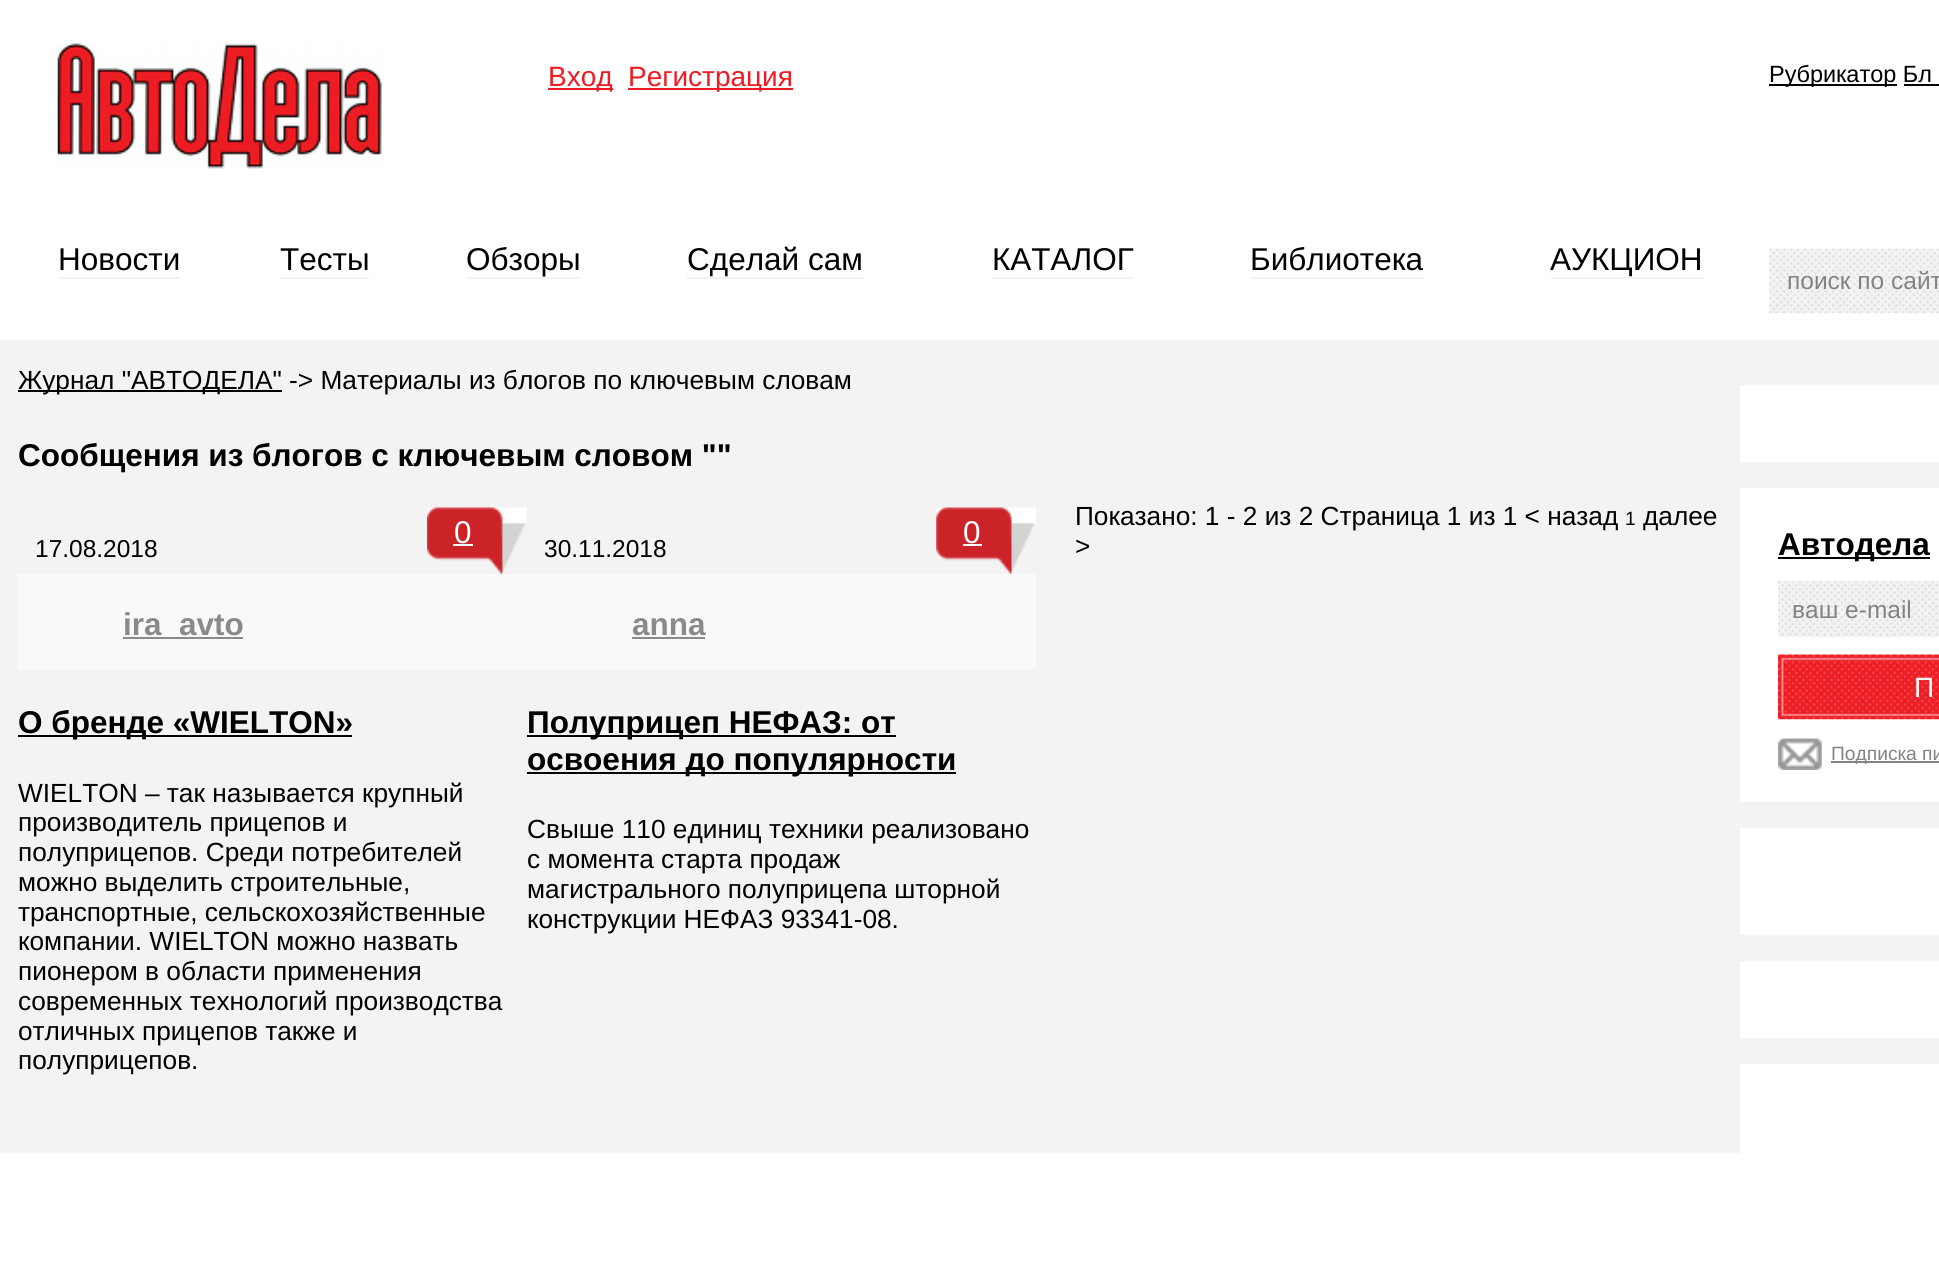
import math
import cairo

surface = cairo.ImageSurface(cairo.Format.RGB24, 1939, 1283)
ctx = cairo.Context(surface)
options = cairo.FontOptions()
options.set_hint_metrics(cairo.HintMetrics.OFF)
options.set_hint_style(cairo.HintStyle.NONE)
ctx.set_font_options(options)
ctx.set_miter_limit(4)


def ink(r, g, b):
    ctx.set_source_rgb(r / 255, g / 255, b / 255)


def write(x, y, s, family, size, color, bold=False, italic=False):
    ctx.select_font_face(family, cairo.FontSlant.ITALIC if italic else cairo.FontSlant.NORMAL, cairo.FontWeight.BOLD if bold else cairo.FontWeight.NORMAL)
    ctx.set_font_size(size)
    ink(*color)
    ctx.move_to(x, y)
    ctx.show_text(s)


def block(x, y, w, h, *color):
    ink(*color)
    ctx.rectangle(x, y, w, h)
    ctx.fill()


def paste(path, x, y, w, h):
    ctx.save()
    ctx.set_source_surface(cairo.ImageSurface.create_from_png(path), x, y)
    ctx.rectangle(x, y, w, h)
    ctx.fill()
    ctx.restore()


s1 = dict(family="Liberation Sans", size=28, color=(237, 28, 36))
s2 = dict(family="Liberation Sans", size=23.5, color=(0, 0, 0))
s3 = dict(family="Liberation Sans", size=24.5, color=(131, 131, 131))
s4 = dict(family="Liberation Sans", size=31.5, color=(0, 0, 0))
s5 = dict(family="Liberation Sans", size=26.25, color=(0, 0, 0))
s6 = dict(family="Liberation Sans", size=31.5, color=(0, 0, 0), bold=True)
s7 = dict(family="Liberation Sans", size=19.25, color=(0, 0, 0))
s8 = dict(family="Liberation Sans", size=31.5, color=(255, 255, 255))
s9 = dict(family="Liberation Sans", size=24.5, color=(0, 0, 0))
s10 = dict(family="Liberation Sans", size=31.5, color=(138, 138, 138), bold=True)
s11 = dict(family="Liberation Sans", size=28, color=(255, 255, 255))
s12 = dict(family="Liberation Sans", size=19.25, color=(131, 131, 131))

ink(255, 255, 255)
ctx.paint()
paste("pic1.png", 57, 43, 325, 126)
block(548, 88, 65, 2, 237, 28, 36)
write(548, 86, "Вход", **s1)
block(628, 88, 165, 2, 237, 28, 36)
write(628, 86, "Регистрация", **s1)
block(1769, 84, 128, 2, 0, 0, 0)
write(1769, 82, "Рубрикатор Бл", **s2)
block(1904, 84, 35, 2, 0, 0, 0)
paste("pic2.png", 1769, 248, 170, 66)
write(1787, 289, "поиск по сайт", **s3)
block(58, 277, 122, 2, 243, 243, 243)
write(58, 270, "Новости", **s4)
block(280, 277, 89, 2, 243, 243, 243)
write(280, 270, "Тесты", **s4)
block(466, 277, 115, 2, 243, 243, 243)
write(466, 270, "Обзоры", **s4)
block(686, 277, 177, 2, 243, 243, 243)
write(687, 270, "Сделай сам", **s4)
block(992, 277, 142, 2, 243, 243, 243)
write(992, 270, "КАТАЛОГ", **s4)
block(1250, 277, 173, 2, 243, 243, 243)
write(1250, 270, "Библиотека", **s4)
block(1551, 277, 152, 2, 243, 243, 243)
write(1550, 270, "АУКЦИОН", **s4)
block(0, 340, 1939, 813, 243, 243, 243)
block(18, 390, 264, 2, 0, 0, 0)
write(18, 389, "Журнал \"АВТОДЕЛА\" -> Материалы из блогов по ключевым словам", **s5)
write(18, 466, "Сообщения из блогов с ключевым словом \"\"", **s6)
write(1075, 525, "Показано: 1 - 2 из 2 Страница 1 из 1 < назад", **s5)
write(1625, 525, "1", **s7)
write(1643, 525, "далее", **s5)
paste("pic3.png", 427, 507, 100, 67)
write(454, 543, "0", **s8)
block(453, 544, 20, 2, 255, 255, 255)
write(35, 557, "17.08.2018", **s9)
block(18, 574, 1018, 96, 249, 249, 249)
block(123, 637, 120, 2, 138, 138, 138)
write(123, 635, "ira_avto", **s10)
block(18, 735, 334, 2, 0, 0, 0)
write(18, 733, "О бренде «WIELTON»", **s6)
write(18, 802, "WIELTON – так называется крупный", **s5)
write(18, 831, "производитель прицепов и", **s5)
write(18, 861, "полуприцепов. Среди потребителей", **s5)
write(18, 891, "можно выделить строительные,", **s5)
write(18, 921, "транспортные, сельскохозяйственные", **s5)
write(18, 950, "компании. WIELTON можно назвать", **s5)
write(18, 980, "пионером в области применения", **s5)
write(18, 1010, "современных технологий производства", **s5)
write(18, 1040, "отличных прицепов также и", **s5)
write(18, 1069, "полуприцепов.", **s5)
paste("pic4.png", 936, 507, 100, 67)
write(963, 543, "0", **s8)
block(963, 544, 19, 2, 255, 255, 255)
write(544, 557, "30.11.2018", **s9)
write(632, 635, "anna", **s10)
block(632, 637, 73, 2, 138, 138, 138)
block(527, 735, 369, 2, 0, 0, 0)
write(527, 733, "Полуприцеп НЕФАЗ: от", **s6)
block(527, 772, 429, 2, 0, 0, 0)
write(527, 770, "освоения до популярности", **s6)
write(527, 838, "Свыше 110 единиц техники реализовано", **s5)
write(527, 868, "с момента старта продаж", **s5)
write(527, 898, "магистрального полуприцепа шторной", **s5)
write(527, 928, "конструкции НЕФАЗ 93341-08.", **s5)
write(1075, 555, ">", **s5)
block(1740, 385, 199, 77, 255, 255, 255)
block(1740, 488, 199, 314, 255, 255, 255)
block(1778, 557, 152, 2, 0, 0, 0)
write(1778, 555, "Автодела", **s6)
paste("pic5.png", 1778, 581, 161, 56)
write(1792, 618, "ваш e-mail", **s3)
paste("pic6.png", 1778, 654, 161, 66)
write(1914, 697, "П", **s11)
paste("pic7.png", 1778, 738, 44, 32)
block(1831, 761, 108, 2, 132, 132, 132)
write(1831, 760, "Подписка пи", **s12)
block(1740, 828, 199, 107, 255, 255, 255)
block(1740, 961, 199, 77, 255, 255, 255)
block(1740, 1064, 199, 89, 255, 255, 255)
surface.write_to_png("screenshot.png")
